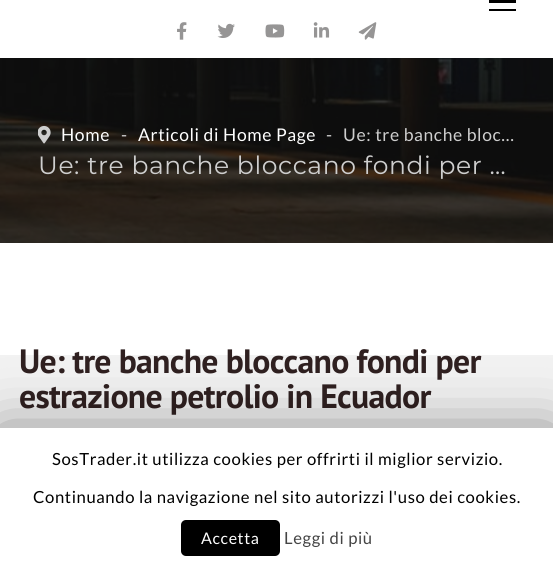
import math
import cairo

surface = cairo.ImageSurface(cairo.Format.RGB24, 553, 568)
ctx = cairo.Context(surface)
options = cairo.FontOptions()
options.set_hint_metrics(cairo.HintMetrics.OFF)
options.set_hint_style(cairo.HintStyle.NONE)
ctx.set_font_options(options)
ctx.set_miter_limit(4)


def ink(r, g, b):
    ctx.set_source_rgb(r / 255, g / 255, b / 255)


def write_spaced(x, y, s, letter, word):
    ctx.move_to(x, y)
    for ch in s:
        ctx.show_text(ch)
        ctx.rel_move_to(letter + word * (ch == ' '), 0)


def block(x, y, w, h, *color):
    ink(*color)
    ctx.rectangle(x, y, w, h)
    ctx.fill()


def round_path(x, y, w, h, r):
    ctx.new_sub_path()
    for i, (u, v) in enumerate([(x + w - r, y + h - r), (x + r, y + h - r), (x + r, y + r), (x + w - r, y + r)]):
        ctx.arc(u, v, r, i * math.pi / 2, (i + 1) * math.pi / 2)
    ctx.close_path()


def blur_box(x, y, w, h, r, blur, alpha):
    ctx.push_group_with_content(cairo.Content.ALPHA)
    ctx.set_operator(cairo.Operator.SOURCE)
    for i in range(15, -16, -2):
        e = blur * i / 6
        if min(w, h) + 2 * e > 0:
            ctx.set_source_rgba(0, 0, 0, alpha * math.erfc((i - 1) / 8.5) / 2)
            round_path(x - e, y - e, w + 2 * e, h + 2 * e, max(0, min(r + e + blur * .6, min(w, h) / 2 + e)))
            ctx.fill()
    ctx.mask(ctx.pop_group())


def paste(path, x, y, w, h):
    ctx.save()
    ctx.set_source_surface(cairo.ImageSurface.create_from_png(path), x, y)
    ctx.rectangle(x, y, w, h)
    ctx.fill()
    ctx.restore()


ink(255, 255, 255)
ctx.paint()
block(489, 0, 27, 3, 0, 0, 0)
block(489, 9, 27, 2, 0, 0, 0)
paste("pic1.png", 177, 22, 10, 18)
paste("pic2.png", 217, 23, 18, 15)
paste("pic3.png", 265, 24, 20, 14)
paste("pic4.png", 313, 22, 17, 16)
paste("pic5.png", 358, 22, 19, 18)
paste("pic6.png", 0, 58, 553, 185)
paste("pic7.png", 38, 125, 13, 19)
ctx.select_font_face("Lato")
ctx.set_font_size(17.5)
ink(255, 255, 255)
write_spaced(61, 141, "Home", 0.6, 0)
ink(206, 206, 206)
write_spaced(121, 141, "-", 0.6, 0)
ink(255, 255, 255)
write_spaced(138, 141, "Articoli di Home Page", 0.6, 0)
ink(206, 206, 206)
write_spaced(326, 141, "-", 0.6, 0)
write_spaced(343, 141, "Ue: tre banche bloc…", 0.6, 0)
ctx.select_font_face("Montserrat Thin")
ctx.set_font_size(25)
write_spaced(38, 174, "Ue: tre banche bloccano fondi per …", 0.6, 0)
block(0, 355, 553, 73, 242, 242, 242)
ctx.select_font_face("PT Sans", cairo.FontSlant.NORMAL, cairo.FontWeight.BOLD)
ctx.set_font_size(33.75)
ink(47, 32, 32)
write_spaced(19, 373, "Ue: tre banche bloccano fondi per", -0.7, 0)
write_spaced(19, 408, "estrazione petrolio in Ecuador", -0.7, 0)
ink(0, 0, 0)
blur_box(0, 434, 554, 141, 0, 31, 0.5)
block(0, 428, 553, 140, 255, 255, 255)
ctx.select_font_face("Lato")
ctx.set_font_size(16.7)
ink(0, 0, 0)
write_spaced(52, 465, "SosTrader.it utilizza cookies per offrirti il miglior servizio.", 0.6, 0)
write_spaced(33, 503, "Continuando la navigazione nel sito autorizzi l'uso dei cookies.", 0.6, 0)
round_path(181, 520, 99, 36, 5)
ctx.fill()
ctx.set_font_size(16)
ink(255, 255, 255)
write_spaced(201, 544, "Accetta", 0.6, 0)
ctx.set_font_size(16.7)
ink(68, 68, 68)
write_spaced(284, 544, "Leggi di più", 0.6, 0)
surface.write_to_png("screenshot.png")
